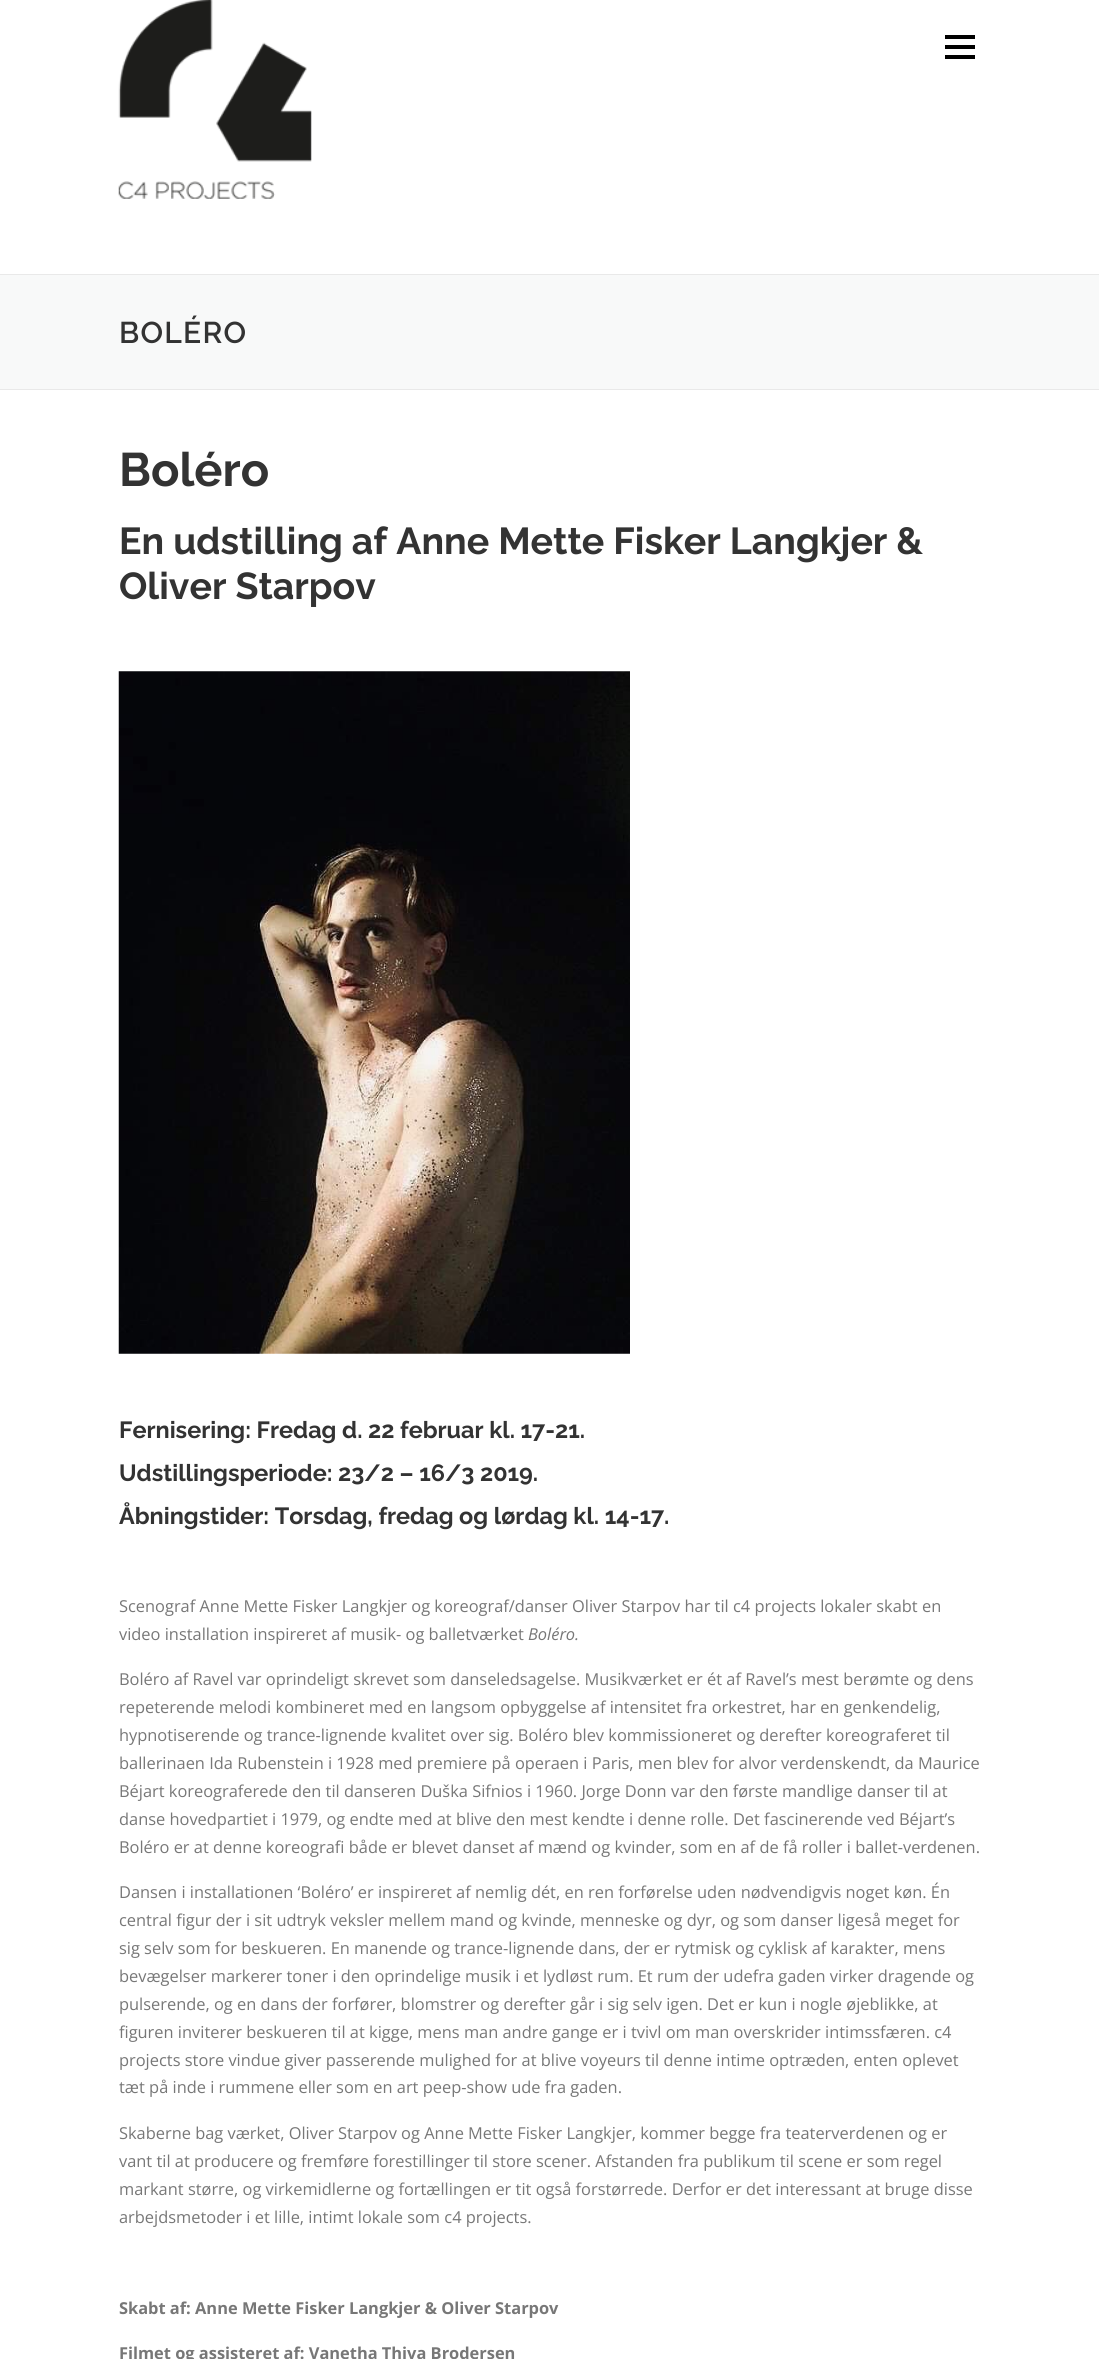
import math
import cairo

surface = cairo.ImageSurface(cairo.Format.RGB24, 1099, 2359)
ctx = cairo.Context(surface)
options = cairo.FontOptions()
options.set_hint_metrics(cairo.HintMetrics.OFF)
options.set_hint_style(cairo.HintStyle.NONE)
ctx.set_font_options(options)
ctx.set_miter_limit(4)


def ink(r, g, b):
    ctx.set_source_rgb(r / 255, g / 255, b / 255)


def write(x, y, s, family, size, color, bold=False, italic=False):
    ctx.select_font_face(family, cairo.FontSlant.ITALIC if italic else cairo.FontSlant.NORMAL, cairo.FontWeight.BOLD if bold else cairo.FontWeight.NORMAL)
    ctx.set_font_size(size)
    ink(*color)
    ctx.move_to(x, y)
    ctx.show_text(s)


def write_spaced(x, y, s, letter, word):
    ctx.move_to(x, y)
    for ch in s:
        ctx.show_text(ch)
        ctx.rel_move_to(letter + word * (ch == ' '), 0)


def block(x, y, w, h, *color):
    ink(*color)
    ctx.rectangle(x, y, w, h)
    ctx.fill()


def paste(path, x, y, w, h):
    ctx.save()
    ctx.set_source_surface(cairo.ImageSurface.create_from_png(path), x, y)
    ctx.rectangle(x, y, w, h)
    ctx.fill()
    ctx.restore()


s1 = dict(family="Raleway", size=47, color=(51, 51, 51), bold=True)
s2 = dict(family="Raleway", size=37.5, color=(51, 51, 51), bold=True)
s3 = dict(family="Raleway", size=23.4, color=(51, 51, 51), bold=True)
s4 = dict(family="Open Sans", size=16.4, color=(119, 119, 119))
s5 = dict(family="Open Sans", size=16.4, color=(119, 119, 119), italic=True)
s6 = dict(family="Open Sans", size=16.4, color=(119, 119, 119), bold=True)

ink(255, 255, 255)
ctx.paint()
paste("pic1.png", 118, 0, 194, 199)
block(945, 45, 30, 4, 0, 0, 0)
block(945, 35, 30, 4, 0, 0, 0)
block(945, 55, 30, 4, 0, 0, 0)
block(0, 275, 1099, 114, 248, 249, 249)
block(0, 274, 1099, 1, 233, 233, 233)
block(0, 389, 1099, 1, 233, 233, 233)
ctx.select_font_face("Raleway SemiBold")
ctx.set_font_size(30)
ink(51, 51, 51)
write_spaced(119, 343, "BOLÉRO", 1.25, 0)
write(119, 486, "Boléro", **s1)
write(119, 554, "En udstilling af Anne Mette Fisker Langkjer &", **s2)
write(119, 599, "Oliver Starpov", **s2)
paste("pic2.png", 118, 671, 512, 683)
write(119, 1438, "Fernisering: Fredag d. 22 februar kl. 17-21.", **s3)
write(119, 1481, "Udstillingsperiode: 23/2 – 16/3 2019.", **s3)
write(119, 1524, "Åbningstider: Torsdag, fredag og lørdag kl. 14-17.", **s3)
write(119, 1612, "Scenograf Anne Mette Fisker Langkjer og koreograf/danser Oliver Starpov har til c4 projects lokaler skabt en", **s4)
write(119, 1640, "video installation inspireret af musik- og balletværket", **s4)
write(528, 1640, "Boléro.", **s5)
write(119, 1685, "Boléro af Ravel var oprindeligt skrevet som danseledsagelse. Musikværket er ét af Ravel’s mest berømte og dens", **s4)
write(119, 1713, "repeterende melodi kombineret med en langsom opbyggelse af intensitet fra orkestret, har en genkendelig,", **s4)
write(119, 1741, "hypnotiserende og trance-lignende kvalitet over sig. Boléro blev kommissioneret og derefter koreograferet til", **s4)
write(119, 1769, "ballerinaen Ida Rubenstein i 1928 med premiere på operaen i Paris, men blev for alvor verdenskendt, da Maurice", **s4)
write(119, 1797, "Béjart koreograferede den til danseren Duška Sifnios i 1960. Jorge Donn var den første mandlige danser til at", **s4)
write(119, 1825, "danse hovedpartiet i 1979, og endte med at blive den mest kendte i denne rolle. Det fascinerende ved Béjart’s", **s4)
write(119, 1853, "Boléro er at denne koreografi både er blevet danset af mænd og kvinder, som en af de få roller i ballet-verdenen.", **s4)
write(119, 1898, "Dansen i installationen ‘Boléro’ er inspireret af nemlig dét, en ren forførelse uden nødvendigvis noget køn. Én", **s4)
write(119, 1926, "central figur der i sit udtryk veksler mellem mand og kvinde, menneske og dyr, og som danser ligeså meget for", **s4)
write(119, 1954, "sig selv som for beskueren. En manende og trance-lignende dans, der er rytmisk og cyklisk af karakter, mens", **s4)
write(119, 1982, "bevægelser markerer toner i den oprindelige musik i et lydløst rum. Et rum der udefra gaden virker dragende og", **s4)
write(119, 2010, "pulserende, og en dans der forfører, blomstrer og derefter går i sig selv igen. Det er kun i nogle øjeblikke, at", **s4)
write(119, 2038, "figuren inviterer beskueren til at kigge, mens man andre gange er i tvivl om man overskrider intimssfæren. c4", **s4)
write(119, 2066, "projects store vindue giver passerende mulighed for at blive voyeurs til denne intime optræden, enten oplevet", **s4)
write(119, 2093, "tæt på inde i rummene eller som en art peep-show ude fra gaden.", **s4)
write(119, 2139, "Skaberne bag værket, Oliver Starpov og Anne Mette Fisker Langkjer, kommer begge fra teaterverdenen og er", **s4)
write(119, 2167, "vant til at producere og fremføre forestillinger til store scener. Afstanden fra publikum til scene er som regel", **s4)
write(119, 2195, "markant større, og virkemidlerne og fortællingen er tit også forstørrede. Derfor er det interessant at bruge disse", **s4)
write(119, 2223, "arbejdsmetoder i et lille, intimt lokale som c4 projects.", **s4)
write(119, 2314, "Skabt af: Anne Mette Fisker Langkjer & Oliver Starpov", **s6)
write(119, 2359, "Filmet og assisteret af: Vanetha Thiva Brodersen", **s6)
surface.write_to_png("screenshot.png")
